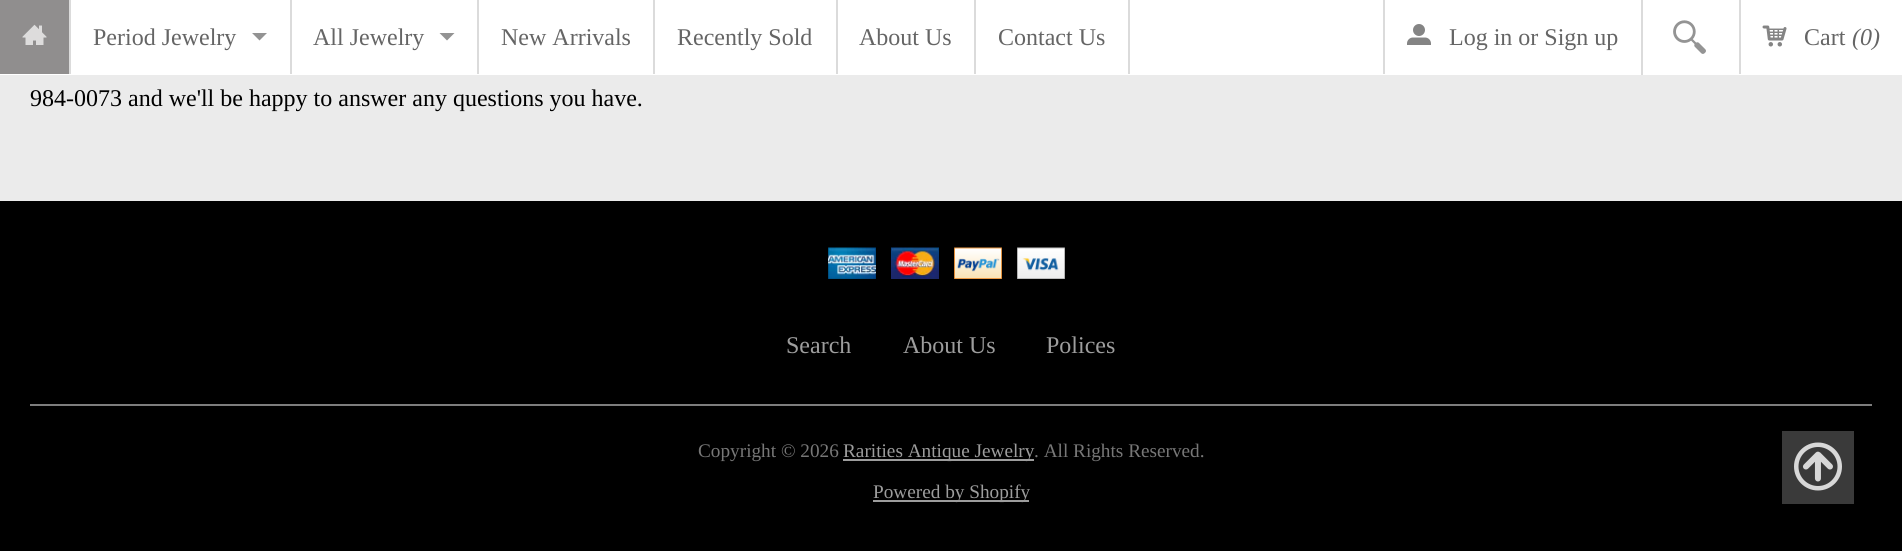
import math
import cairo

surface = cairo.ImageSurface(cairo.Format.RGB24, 1902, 551)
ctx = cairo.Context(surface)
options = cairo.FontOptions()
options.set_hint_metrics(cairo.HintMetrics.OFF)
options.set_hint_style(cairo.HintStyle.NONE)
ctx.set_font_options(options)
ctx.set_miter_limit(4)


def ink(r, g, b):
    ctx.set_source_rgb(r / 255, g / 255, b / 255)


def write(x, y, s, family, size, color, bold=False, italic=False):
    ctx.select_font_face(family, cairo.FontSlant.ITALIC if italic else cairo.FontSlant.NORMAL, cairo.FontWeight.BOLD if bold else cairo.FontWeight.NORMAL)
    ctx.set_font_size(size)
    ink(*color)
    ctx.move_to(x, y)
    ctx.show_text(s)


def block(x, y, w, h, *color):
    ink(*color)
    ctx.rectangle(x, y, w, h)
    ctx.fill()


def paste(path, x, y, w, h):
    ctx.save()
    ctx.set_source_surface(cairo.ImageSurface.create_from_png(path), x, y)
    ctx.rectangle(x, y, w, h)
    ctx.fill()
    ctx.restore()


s1 = dict(family="Liberation Serif", size=24, color=(101, 101, 101))
s2 = dict(family="Liberation Serif", size=24, color=(101, 101, 101), italic=True)
s3 = dict(family="Liberation Serif", size=24, color=(0, 0, 0))
s4 = dict(family="Liberation Serif", size=24, color=(157, 157, 157))
s5 = dict(family="Liberation Serif", size=19.25, color=(119, 119, 119))
s6 = dict(family="Liberation Serif", size=19.25, color=(157, 157, 157))

ink(235, 235, 235)
ctx.paint()
block(0, 0, 1902, 75, 255, 255, 255)
block(69, 0, 2, 74, 219, 219, 219)
block(0, 0, 69, 74, 144, 142, 142)
paste("pic1.png", 22, 24, 25, 21)
block(290, 0, 2, 74, 219, 219, 219)
write(93, 45, "Period Jewelry", **s1)
ink(147, 147, 147)
ctx.new_path()
ctx.move_to(252, 33)
ctx.line_to(267, 33)
ctx.line_to(259.5, 40.5)
ctx.close_path()
ctx.fill()
block(477, 0, 2, 74, 219, 219, 219)
write(313, 45, "All Jewelry", **s1)
ink(147, 147, 147)
ctx.new_path()
ctx.move_to(439.5, 33)
ctx.line_to(454.5, 33)
ctx.line_to(447, 40.5)
ctx.close_path()
ctx.fill()
block(653, 0, 2, 74, 219, 219, 219)
write(501, 45, "New Arrivals", **s1)
block(836, 0, 2, 74, 219, 219, 219)
write(677, 45, "Recently Sold", **s1)
block(974, 0, 2, 74, 219, 219, 219)
write(859, 45, "About Us", **s1)
block(1128, 0, 2, 74, 219, 219, 219)
write(998, 45, "Contact Us", **s1)
block(1383, 0, 2, 74, 219, 219, 219)
paste("pic2.png", 1407, 24, 24, 21)
write(1449, 45, "Log in or Sign up", **s1)
block(1641, 0, 2, 75, 219, 219, 219)
paste("pic3.png", 1673, 20, 33, 34)
block(1739, 0, 2, 74, 219, 219, 219)
paste("pic4.png", 1762, 25, 25, 22)
write(1804, 45, "Cart", **s1)
write(1852, 45, "(0)", **s2)
write(30, 106, "984-0073 and we'll be happy to answer any questions you have.", **s3)
block(0, 201, 1902, 350, 0, 0, 0)
paste("pic5.png", 828, 247, 48, 32)
paste("pic6.png", 891, 247, 48, 32)
paste("pic7.png", 954, 247, 48, 32)
paste("pic8.png", 1017, 247, 48, 32)
write(786, 353, "Search", **s4)
write(903, 353, "About Us", **s4)
write(1046, 353, "Polices", **s4)
block(30, 404, 1842, 2, 125, 125, 125)
write(698, 457, "Copyright © 2026", **s5)
block(843, 459, 191, 2, 157, 157, 157)
write(843, 457, "Rarities Antique Jewelry", **s6)
write(1034, 457, ". All Rights Reserved.", **s5)
block(1782, 431, 72, 73, 58, 58, 58)
paste("pic9.png", 1794, 442, 48, 49)
block(873, 500, 156, 2, 157, 157, 157)
write(873, 498, "Powered by Shopify", **s6)
surface.write_to_png("screenshot.png")
